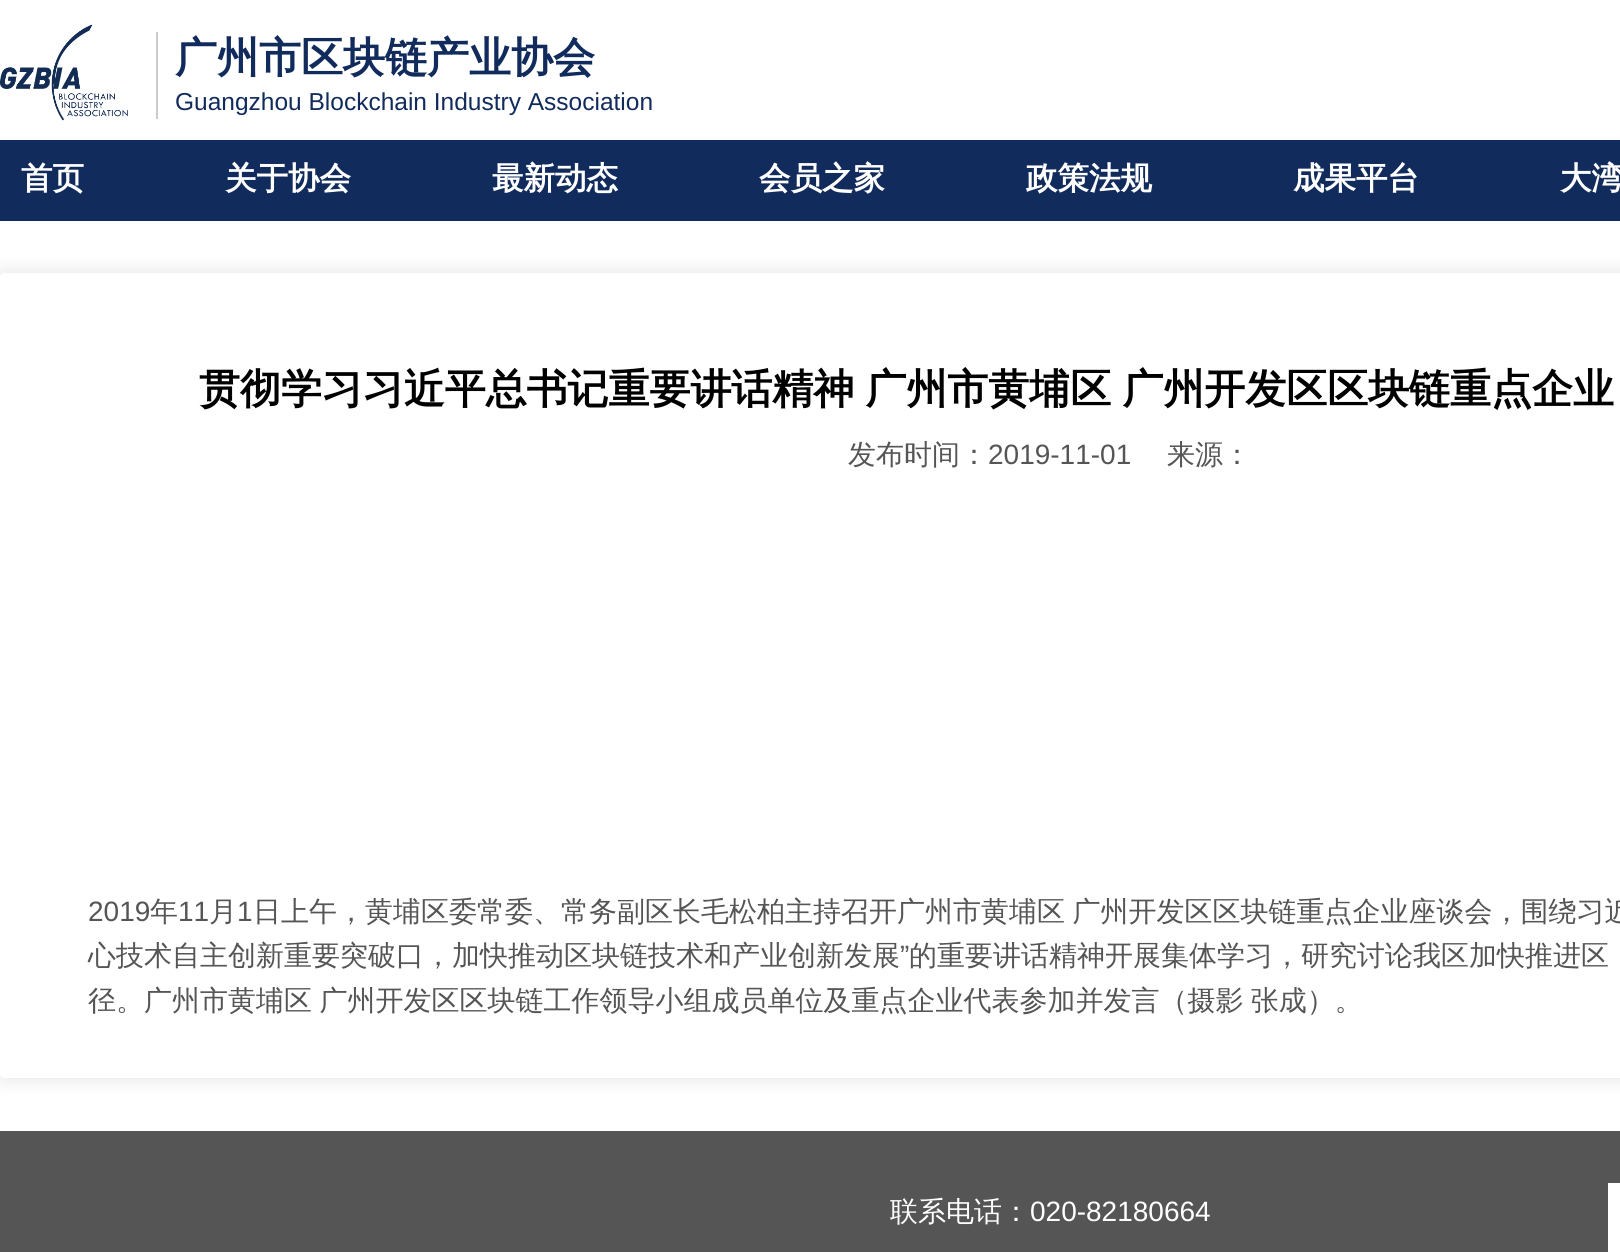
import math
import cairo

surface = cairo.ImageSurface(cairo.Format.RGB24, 1620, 1252)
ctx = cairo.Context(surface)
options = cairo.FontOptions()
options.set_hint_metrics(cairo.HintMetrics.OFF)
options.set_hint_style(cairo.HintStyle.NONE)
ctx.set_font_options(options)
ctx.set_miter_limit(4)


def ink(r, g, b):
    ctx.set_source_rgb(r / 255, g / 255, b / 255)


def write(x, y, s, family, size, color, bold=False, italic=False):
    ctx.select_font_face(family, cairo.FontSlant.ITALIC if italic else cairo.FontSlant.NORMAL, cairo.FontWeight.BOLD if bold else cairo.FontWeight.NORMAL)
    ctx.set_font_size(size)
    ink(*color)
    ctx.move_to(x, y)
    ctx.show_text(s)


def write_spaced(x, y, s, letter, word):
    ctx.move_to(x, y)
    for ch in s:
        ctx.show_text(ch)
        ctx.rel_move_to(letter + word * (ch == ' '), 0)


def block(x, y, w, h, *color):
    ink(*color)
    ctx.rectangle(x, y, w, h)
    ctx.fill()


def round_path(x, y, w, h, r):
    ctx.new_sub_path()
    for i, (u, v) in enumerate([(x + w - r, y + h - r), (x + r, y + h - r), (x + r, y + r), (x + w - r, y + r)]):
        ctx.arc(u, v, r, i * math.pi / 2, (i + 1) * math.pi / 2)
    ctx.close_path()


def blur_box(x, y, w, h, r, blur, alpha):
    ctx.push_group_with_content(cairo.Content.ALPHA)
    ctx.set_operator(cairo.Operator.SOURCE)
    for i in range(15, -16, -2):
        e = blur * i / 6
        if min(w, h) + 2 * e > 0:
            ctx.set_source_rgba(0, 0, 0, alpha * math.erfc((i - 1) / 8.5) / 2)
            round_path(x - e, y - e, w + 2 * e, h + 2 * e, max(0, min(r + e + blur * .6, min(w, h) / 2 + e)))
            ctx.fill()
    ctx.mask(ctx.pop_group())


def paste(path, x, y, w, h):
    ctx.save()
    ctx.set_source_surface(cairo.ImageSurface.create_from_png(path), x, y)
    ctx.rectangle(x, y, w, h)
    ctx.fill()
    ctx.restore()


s1 = dict(family="WenQuanYi Zen Hei", size=42, color=(17, 43, 92), bold=True)
s2 = dict(family="Liberation Sans", size=24.5, color=(17, 43, 92))
s3 = dict(family="WenQuanYi Zen Hei", size=31.5, color=(255, 255, 255), bold=True)
s4 = dict(family="WenQuanYi Zen Hei Medium", size=28, color=(85, 85, 85))
s5 = dict(family="Liberation Sans", size=28, color=(85, 85, 85))
s6 = dict(family="WenQuanYi Zen Hei Medium", size=28, color=(255, 255, 255))
s7 = dict(family="Liberation Sans", size=28, color=(255, 255, 255))

ink(255, 255, 255)
ctx.paint()
paste("pic1.png", 0, 24, 128, 97)
block(156, 32, 2, 87, 204, 204, 204)
write(175, 72, "广州市区块链产业协会", **s1)
write(175, 110, "Guangzhou Blockchain Industry Association", **s2)
block(0, 140, 1620, 81, 17, 43, 92)
write(21, 189, "首页", **s3)
write(225, 189, "关于协会", **s3)
write(492, 189, "最新动态", **s3)
write(759, 189, "会员之家", **s3)
write(1026, 189, "政策法规", **s3)
write(1293, 189, "成果平台", **s3)
write(1560, 189, "大湾", **s3)
ctx.save()
ctx.set_fill_rule(cairo.FillRule.EVEN_ODD)
ctx.new_path()
ctx.move_to(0, 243)
ctx.line_to(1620, 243)
ctx.line_to(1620, 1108)
ctx.line_to(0, 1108)
ctx.close_path()
ctx.move_to(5, 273)
ctx.line_to(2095, 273)
ctx.curve_to(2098, 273, 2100, 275, 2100, 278)
ctx.line_to(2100, 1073)
ctx.curve_to(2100, 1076, 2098, 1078, 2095, 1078)
ctx.line_to(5, 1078)
ctx.curve_to(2, 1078, 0, 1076, 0, 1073)
ctx.line_to(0, 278)
ctx.curve_to(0, 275, 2, 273, 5, 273)
ctx.close_path()
ctx.clip()
ink(0, 0, 0)
blur_box(-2, 271, 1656, 809, 7, 9, 0.1)
ctx.restore()
ctx.set_font_size(40.95)
ink(0, 0, 0)
write_spaced(199, 403, "贯彻学习习近平总书记重要讲话精神 广州市黄埔区 广州开发区区块链重点企业", 0, -1)
write(848, 464, "发布时间：", **s4)
write(988, 464, "2019-11-01", **s5)
write(1167, 464, "来源：", **s4)
write(88, 921, "2019", **s5)
write(150, 921, "年", **s4)
write(178, 921, "11", **s5)
write(209, 921, "月", **s4)
write(237, 921, "1", **s5)
ctx.select_font_face("WenQuanYi Zen Hei Medium")
write_spaced(253, 921, "日上午，黄埔区委常委、常务副区长毛松柏主持召开广州市黄埔区 广州开发区区块链重点企业座谈会，围绕习近", 0, -1)
write(88, 965, "心技术自主创新重要突破口，加快推动区块链技术和产业创新发展", **s4)
write(900, 965, "”", **s5)
write(909, 965, "的重要讲话精神开展集体学习，研究讨论我区加快推进区", **s4)
write_spaced(88, 1010, "径。广州市黄埔区 广州开发区区块链工作领导小组成员单位及重点企业代表参加并发言（摄影 张成）。", 0, -1)
block(0, 1131, 1620, 121, 85, 85, 85)
write(890, 1221, "联系电话：", **s6)
write(1030, 1221, "020-82180664", **s7)
block(1608, 1183, 12, 69, 255, 255, 255)
surface.write_to_png("screenshot.png")
